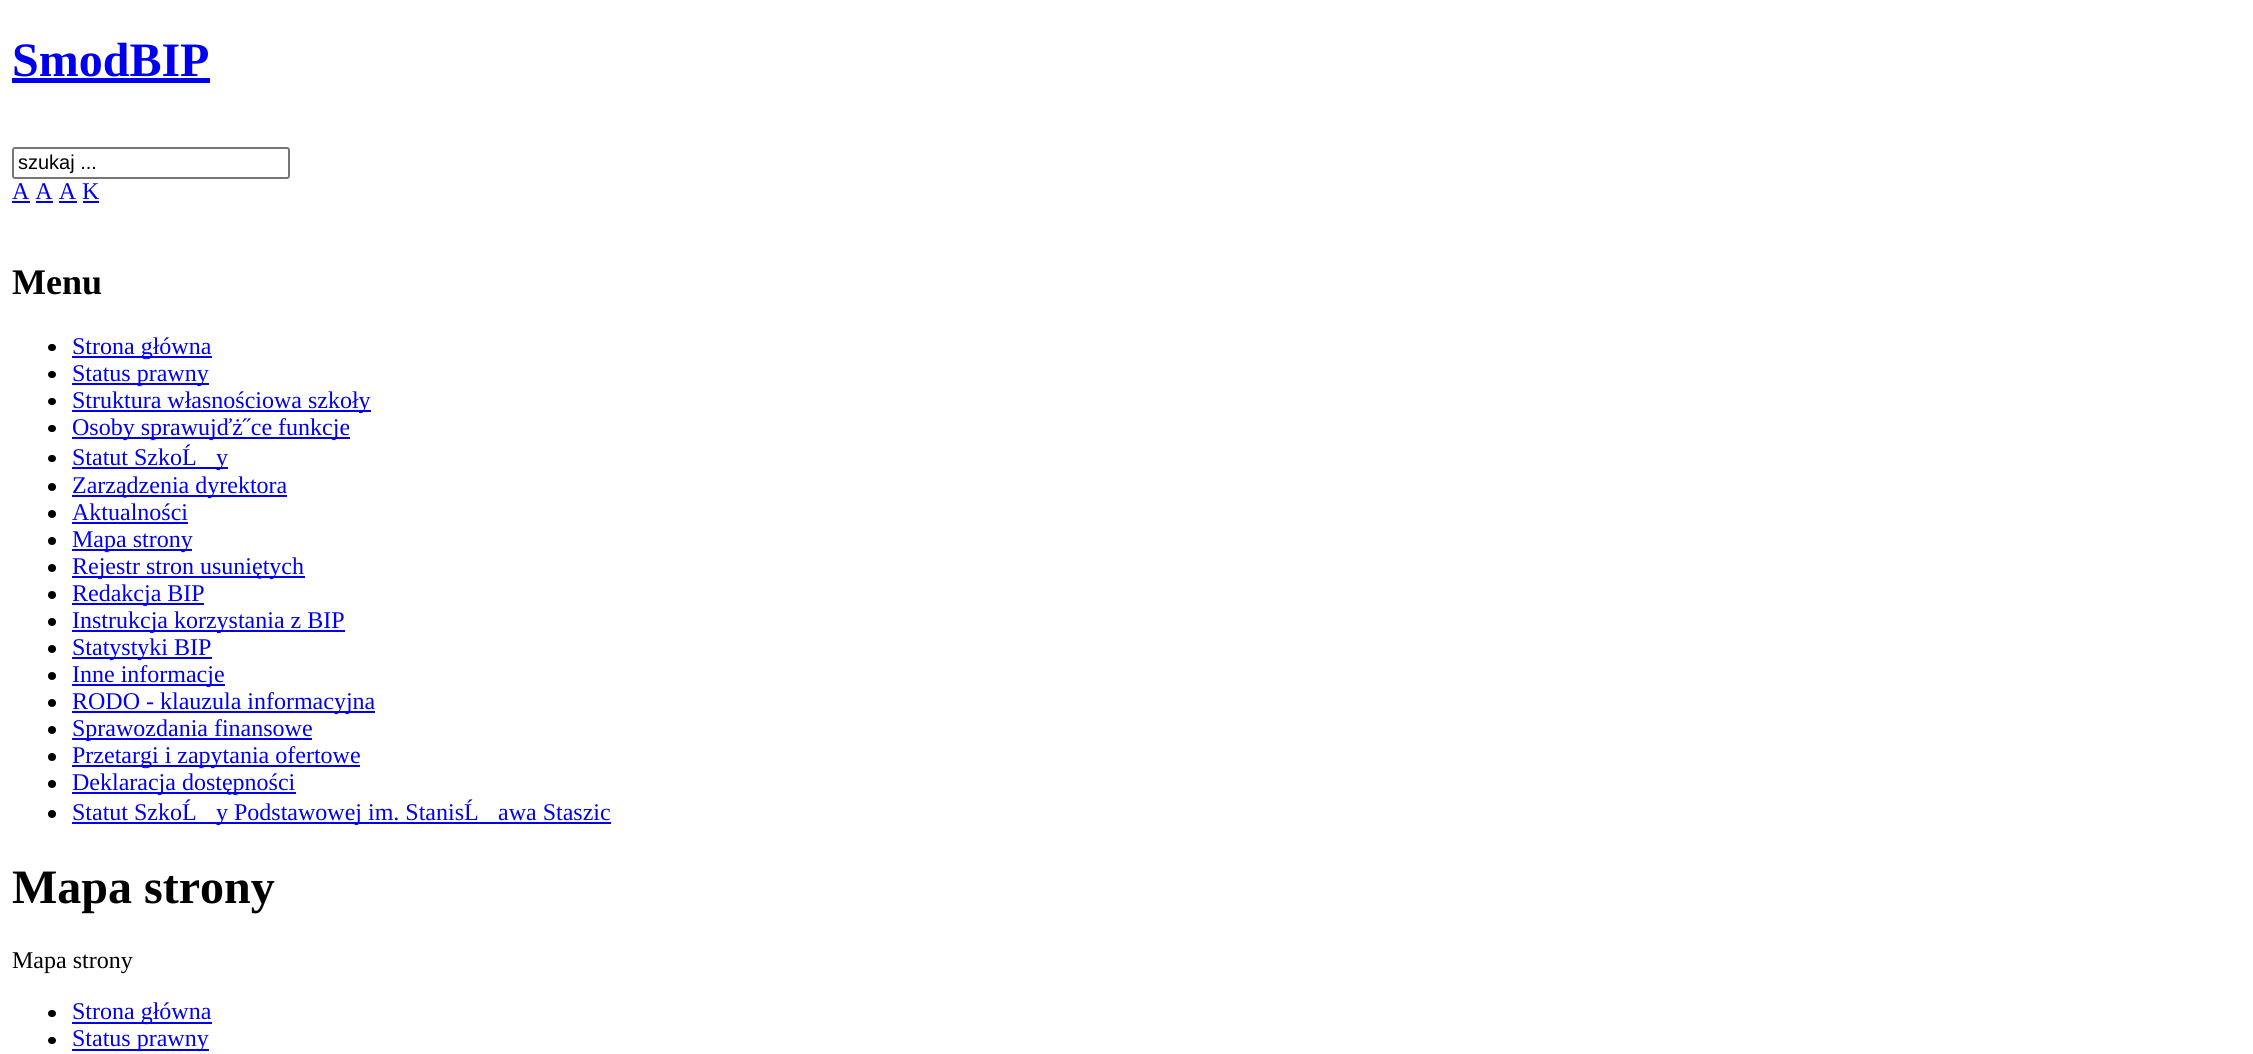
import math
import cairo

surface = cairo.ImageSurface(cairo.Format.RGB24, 2253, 1054)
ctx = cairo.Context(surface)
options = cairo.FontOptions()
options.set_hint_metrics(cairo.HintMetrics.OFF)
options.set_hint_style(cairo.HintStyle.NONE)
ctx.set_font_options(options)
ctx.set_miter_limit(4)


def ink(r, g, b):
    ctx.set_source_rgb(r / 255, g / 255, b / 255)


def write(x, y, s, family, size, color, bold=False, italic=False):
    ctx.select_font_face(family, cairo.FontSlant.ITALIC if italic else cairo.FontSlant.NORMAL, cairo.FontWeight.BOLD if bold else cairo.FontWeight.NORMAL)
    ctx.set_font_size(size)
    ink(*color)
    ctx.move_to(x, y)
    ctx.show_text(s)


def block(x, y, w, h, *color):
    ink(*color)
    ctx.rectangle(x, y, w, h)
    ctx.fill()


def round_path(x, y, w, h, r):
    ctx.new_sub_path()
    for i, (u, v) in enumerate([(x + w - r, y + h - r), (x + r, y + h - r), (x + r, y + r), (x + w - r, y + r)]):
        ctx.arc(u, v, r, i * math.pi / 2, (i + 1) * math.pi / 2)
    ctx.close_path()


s1 = dict(family="Liberation Serif", size=48, color=(0, 0, 238), bold=True)
s2 = dict(family="Liberation Sans", size=20, color=(0, 0, 0))
s3 = dict(family="Liberation Serif", size=24, color=(0, 0, 238))
s4 = dict(family="Liberation Serif", size=36, color=(0, 0, 0), bold=True)
s5 = dict(family="Liberation Serif", size=48, color=(0, 0, 0), bold=True)
s6 = dict(family="Liberation Serif", size=24, color=(0, 0, 0))

ink(255, 255, 255)
ctx.paint()
write(12, 76, "SmodBIP", **s1)
block(12, 78, 198, 5, 0, 0, 238)
round_path(13, 148, 276, 30, 2)
ink(118, 118, 118)
ctx.stroke()
write(18, 169, "szukaj ...", **s2)
write(12, 199, "A A A K", **s3)
block(12, 201, 18, 2, 0, 0, 238)
block(36, 201, 17, 2, 0, 0, 238)
block(59, 201, 18, 2, 0, 0, 238)
block(83, 201, 16, 2, 0, 0, 238)
write(12, 294, "Menu", **s4)
round_path(48, 344, 8, 7, 3.5)
ctx.fill()
block(72, 356, 140, 2, 0, 0, 238)
write(72, 354, "Strona główna", **s3)
ink(0, 0, 0)
round_path(48, 371, 8, 7, 3.5)
ctx.fill()
block(72, 383, 137, 2, 0, 0, 238)
write(72, 381, "Status prawny", **s3)
ink(0, 0, 0)
round_path(48, 398, 8, 7, 3.5)
ctx.fill()
block(72, 410, 299, 2, 0, 0, 238)
write(72, 408, "Struktura własnościowa szkoły", **s3)
ink(0, 0, 0)
round_path(48, 425, 8, 7, 3.5)
ctx.fill()
block(72, 437, 278, 2, 0, 0, 238)
write(72, 435, "Osoby sprawujďż˝ce funkcje", **s3)
ink(0, 0, 0)
round_path(48, 455, 8, 7, 3.5)
ctx.fill()
write(72, 465, "Statut SzkoĹ", **s3)
block(72, 467, 156, 2, 0, 0, 238)
write(216, 465, "y", **s3)
ink(0, 0, 0)
ctx.new_path()
ctx.arc(52, 487, 4, 0, 2 * math.pi)
ctx.fill()
block(72, 495, 215, 2, 0, 0, 238)
write(72, 493, "Zarządzenia dyrektora", **s3)
ink(0, 0, 0)
ctx.new_path()
ctx.arc(52, 514, 4, 0, 2 * math.pi)
ctx.fill()
write(72, 520, "Aktualności", **s3)
block(72, 522, 116, 2, 0, 0, 238)
ink(0, 0, 0)
ctx.new_path()
ctx.arc(52, 541, 4, 0, 2 * math.pi)
ctx.fill()
block(72, 549, 120, 2, 0, 0, 238)
write(72, 547, "Mapa strony", **s3)
ink(0, 0, 0)
ctx.new_path()
ctx.arc(52, 568, 4, 0, 2 * math.pi)
ctx.fill()
block(72, 576, 233, 2, 0, 0, 238)
write(72, 574, "Rejestr stron usuniętych", **s3)
ink(0, 0, 0)
ctx.new_path()
ctx.arc(52, 595, 4, 0, 2 * math.pi)
ctx.fill()
block(72, 603, 132, 2, 0, 0, 238)
write(72, 601, "Redakcja BIP", **s3)
ink(0, 0, 0)
ctx.new_path()
ctx.arc(52, 622, 4, 0, 2 * math.pi)
ctx.fill()
block(72, 630, 273, 2, 0, 0, 238)
write(72, 628, "Instrukcja korzystania z BIP", **s3)
ink(0, 0, 0)
ctx.new_path()
ctx.arc(52, 649, 4, 0, 2 * math.pi)
ctx.fill()
block(72, 657, 140, 2, 0, 0, 238)
write(72, 655, "Statystyki BIP", **s3)
ink(0, 0, 0)
ctx.new_path()
ctx.arc(52, 676, 4, 0, 2 * math.pi)
ctx.fill()
block(72, 684, 153, 2, 0, 0, 238)
write(72, 682, "Inne informacje", **s3)
ink(0, 0, 0)
ctx.new_path()
ctx.arc(52, 703, 4, 0, 2 * math.pi)
ctx.fill()
block(72, 711, 303, 2, 0, 0, 238)
write(72, 709, "RODO - klauzula informacyjna", **s3)
ink(0, 0, 0)
ctx.new_path()
ctx.arc(52, 730, 4, 0, 2 * math.pi)
ctx.fill()
block(72, 738, 240, 2, 0, 0, 238)
write(72, 736, "Sprawozdania finansowe", **s3)
ink(0, 0, 0)
ctx.new_path()
ctx.arc(52, 757, 4, 0, 2 * math.pi)
ctx.fill()
block(72, 765, 288, 2, 0, 0, 238)
write(72, 763, "Przetargi i zapytania ofertowe", **s3)
ink(0, 0, 0)
ctx.new_path()
ctx.arc(52, 784, 4, 0, 2 * math.pi)
ctx.fill()
block(72, 792, 224, 2, 0, 0, 238)
write(72, 790, "Deklaracja dostępności", **s3)
ink(0, 0, 0)
ctx.new_path()
ctx.arc(52, 814, 4, 0, 2 * math.pi)
ctx.fill()
write(72, 820, "Statut SzkoĹ", **s3)
block(72, 822, 539, 2, 0, 0, 238)
write(216, 820, "y Podstawowej im. StanisĹ", **s3)
write(498, 820, "awa Staszic", **s3)
write(12, 903, "Mapa strony", **s5)
write(12, 968, "Mapa strony", **s6)
round_path(48, 1010, 8, 7, 3.5)
ctx.fill()
block(72, 1022, 140, 2, 0, 0, 238)
write(72, 1019, "Strona główna", **s3)
ink(0, 0, 0)
round_path(48, 1037, 8, 7, 3.5)
ctx.fill()
block(72, 1049, 137, 2, 0, 0, 238)
write(72, 1046, "Status prawny", **s3)
surface.write_to_png("screenshot.png")
